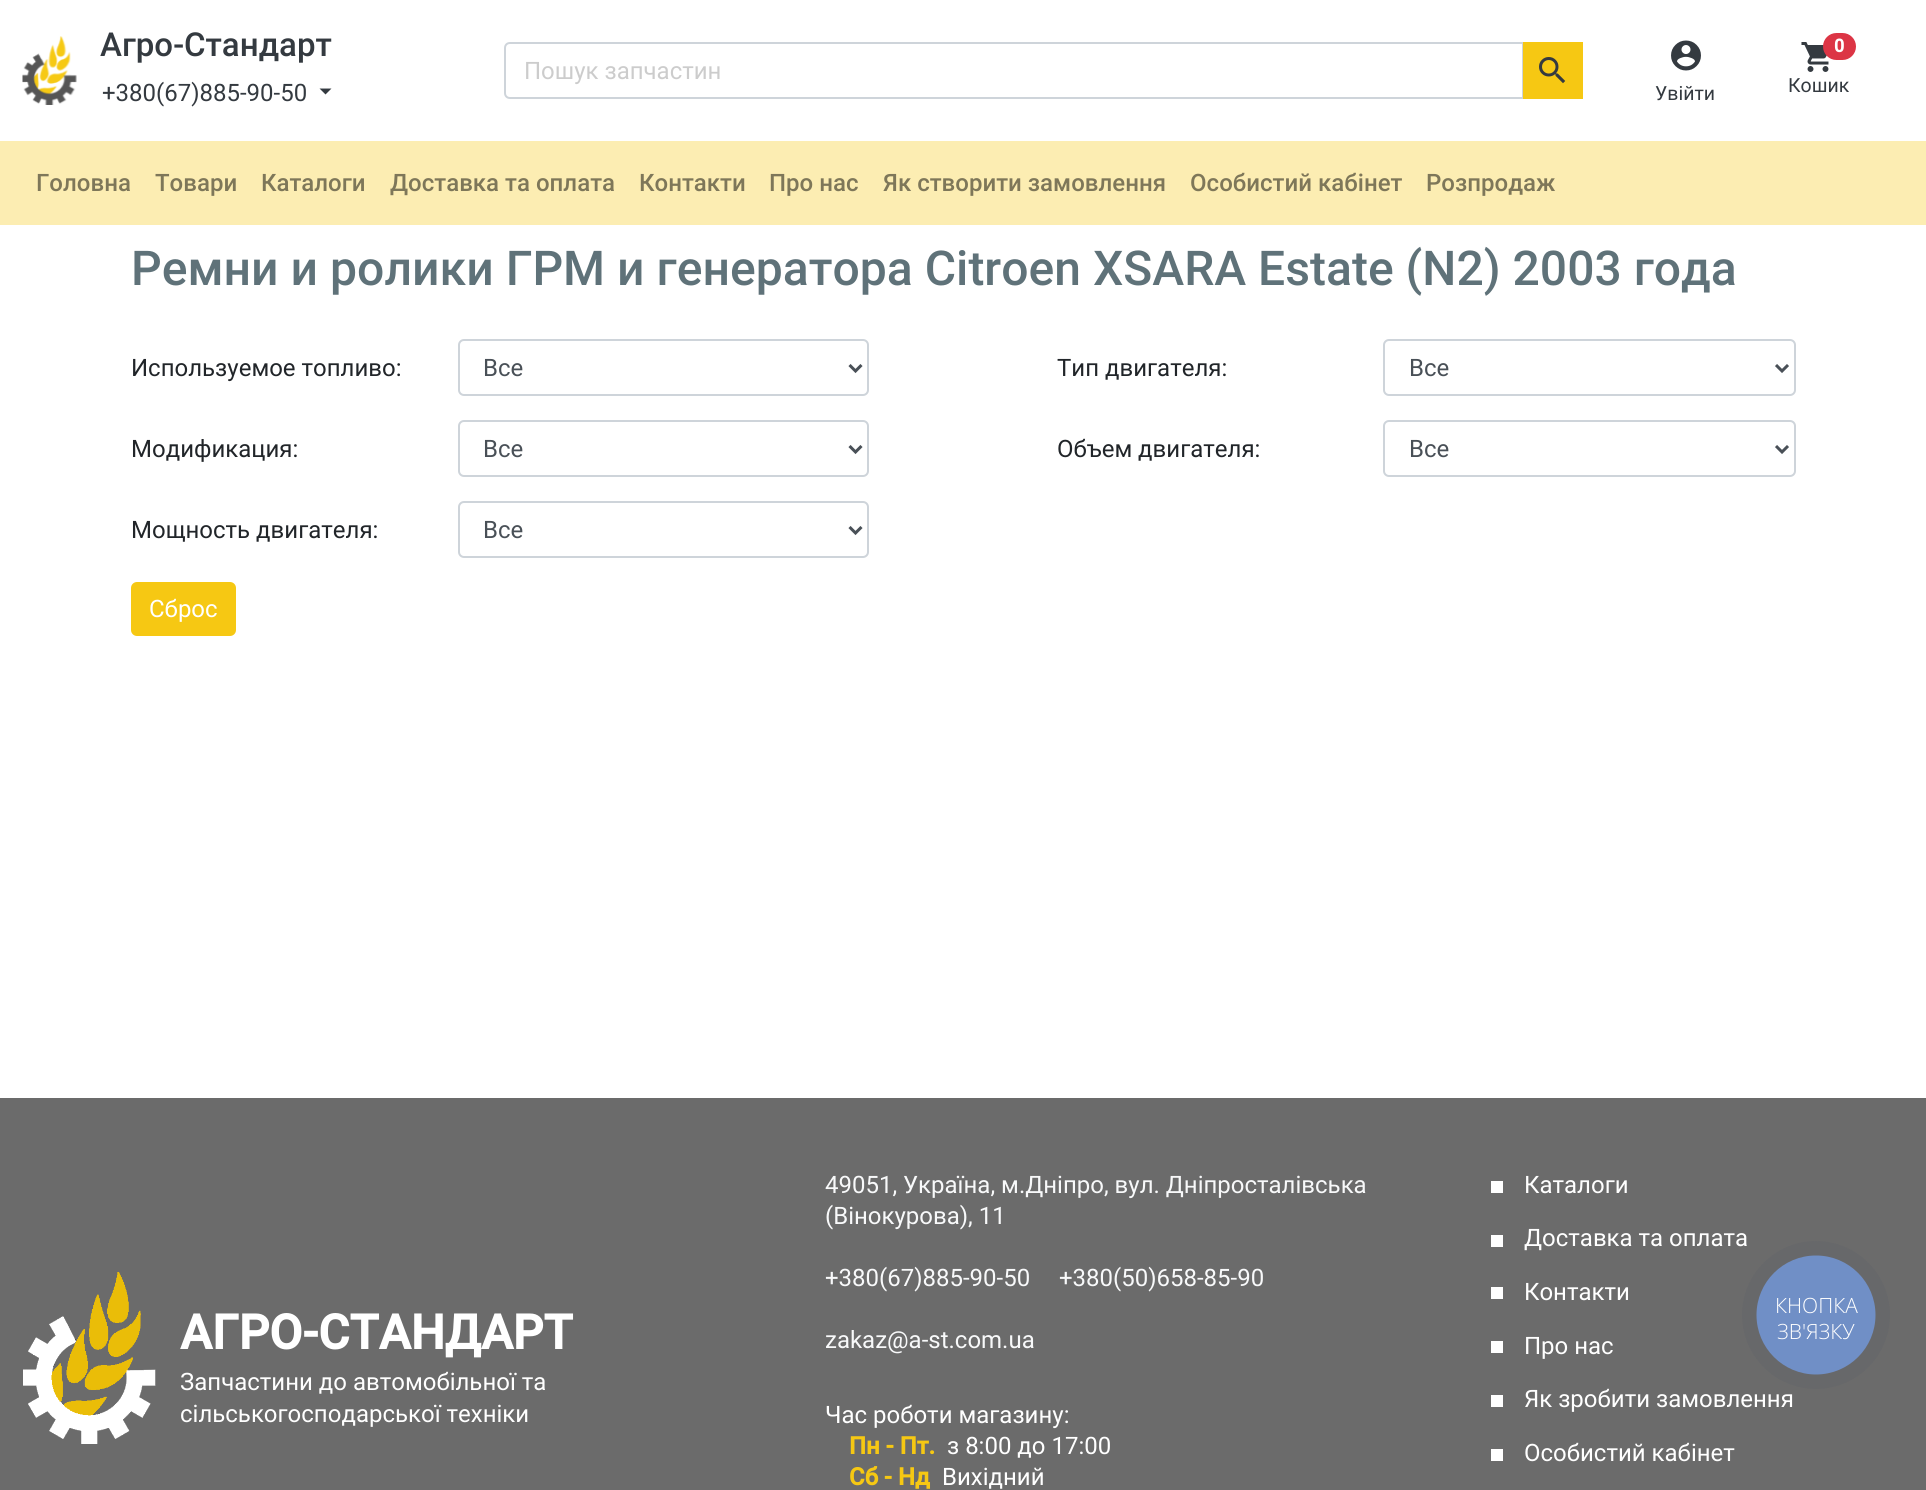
import math
import cairo

surface = cairo.ImageSurface(cairo.Format.RGB24, 1926, 1490)
ctx = cairo.Context(surface)
options = cairo.FontOptions()
options.set_hint_metrics(cairo.HintMetrics.OFF)
options.set_hint_style(cairo.HintStyle.NONE)
ctx.set_font_options(options)
ctx.set_miter_limit(4)


def ink(r, g, b):
    ctx.set_source_rgb(r / 255, g / 255, b / 255)


def write(x, y, s, family, size, color, bold=False, italic=False):
    ctx.select_font_face(family, cairo.FontSlant.ITALIC if italic else cairo.FontSlant.NORMAL, cairo.FontWeight.BOLD if bold else cairo.FontWeight.NORMAL)
    ctx.set_font_size(size)
    ink(*color)
    ctx.move_to(x, y)
    ctx.show_text(s)


def block(x, y, w, h, *color):
    ink(*color)
    ctx.rectangle(x, y, w, h)
    ctx.fill()


def round_path(x, y, w, h, r):
    ctx.new_sub_path()
    for i, (u, v) in enumerate([(x + w - r, y + h - r), (x + r, y + h - r), (x + r, y + r), (x + w - r, y + r)]):
        ctx.arc(u, v, r, i * math.pi / 2, (i + 1) * math.pi / 2)
    ctx.close_path()


def paste(path, x, y, w, h):
    ctx.save()
    ctx.set_source_surface(cairo.ImageSurface.create_from_png(path), x, y)
    ctx.rectangle(x, y, w, h)
    ctx.fill()
    ctx.restore()


s1 = dict(family="Roboto Medium", size=33, color=(52, 58, 64))
s2 = dict(family="Roboto", size=24, color=(52, 58, 64))
s3 = dict(family="Roboto", size=24, color=(204, 204, 204))
s4 = dict(family="Roboto", size=18, color=(255, 255, 255), bold=True)
s5 = dict(family="Roboto", size=19.5, color=(52, 58, 64))
s6 = dict(family="Roboto Medium", size=24, color=(126, 119, 89))
s7 = dict(family="Roboto Medium", size=48, color=(95, 114, 121))
s8 = dict(family="Roboto", size=24, color=(33, 37, 41))
s9 = dict(family="Roboto", size=24, color=(73, 80, 87))
s10 = dict(family="Roboto", size=24, color=(255, 255, 255))
s11 = dict(family="Roboto", size=48, color=(255, 255, 255), bold=True)
s12 = dict(family="Roboto", size=24, color=(248, 249, 250))
s13 = dict(family="Roboto", size=24, color=(246, 200, 19), bold=True)
s14 = dict(family="Open Sans Light", size=21, color=(255, 255, 255))

ink(255, 255, 255)
ctx.paint()
paste("pic1.png", 22, 36, 55, 69)
write(100, 56, "Агро-Стандарт", **s1)
write(102, 101, "+380(67)885-90-50", **s2)
ctx.new_path()
ctx.move_to(319.5, 88.5)
ctx.line_to(331.5, 88.5)
ctx.line_to(325.5, 94.5)
ctx.close_path()
ctx.fill()
ctx.new_path()
ctx.move_to(510, 43)
ctx.line_to(1523, 43)
ctx.line_to(1523, 98)
ctx.line_to(510, 98)
ctx.curve_to(507, 98, 505, 96, 505, 93)
ctx.line_to(505, 48)
ctx.curve_to(505, 45, 507, 43, 510, 43)
ctx.close_path()
ink(206, 212, 218)
ctx.stroke()
write(524, 79, "Пошук запчастин", **s3)
block(1523, 42, 60, 57, 246, 200, 19)
paste("pic2.png", 1539, 57, 27, 27)
paste("pic3.png", 1801, 42, 28, 30)
ink(220, 53, 69)
round_path(1823, 33, 33, 27, 13.5)
ctx.fill()
write(1834, 52, "0", **s4)
write(1788, 92, "Кошик", **s5)
paste("pic4.png", 1671, 40, 30, 31)
write(1655, 100, "Увійти", **s5)
block(0, 141, 1926, 84, 252, 237, 178)
write(36, 191, "Головна", **s6)
write(155, 191, "Товари", **s6)
write(261, 191, "Каталоги", **s6)
write(390, 191, "Доставка та оплата", **s6)
write(639, 191, "Контакти", **s6)
write(769, 191, "Про нас", **s6)
write(883, 191, "Як створити замовлення", **s6)
write(1190, 191, "Особистий кабінет", **s6)
write(1426, 191, "Розпродаж", **s6)
write(131, 285, "Ремни и ролики ГРМ и генератора Citroen XSARA Estate (N2) 2003 года", **s7)
write(131, 376, "Используемое топливо:", **s8)
round_path(459, 340, 409, 55, 5)
ink(206, 212, 218)
ctx.stroke()
ctx.new_path()
ctx.move_to(849.5, 365)
ctx.line_to(855.5, 371)
ctx.line_to(861.5, 365)
ink(73, 80, 87)
ctx.set_line_width(3)
ctx.stroke()
write(483, 376, "Все", **s9)
write(131, 457, "Модификация:", **s8)
round_path(459, 421, 409, 55, 5)
ink(206, 212, 218)
ctx.set_line_width(2)
ctx.stroke()
ctx.new_path()
ctx.move_to(849.5, 446)
ctx.line_to(855.5, 452)
ctx.line_to(861.5, 446)
ink(73, 80, 87)
ctx.set_line_width(3)
ctx.stroke()
write(483, 457, "Все", **s9)
write(131, 538, "Мощность двигателя:", **s8)
round_path(459, 502, 409, 55, 5)
ink(206, 212, 218)
ctx.set_line_width(2)
ctx.stroke()
ctx.new_path()
ctx.move_to(849.5, 527)
ctx.line_to(855.5, 533)
ctx.line_to(861.5, 527)
ink(73, 80, 87)
ctx.set_line_width(3)
ctx.stroke()
write(483, 538, "Все", **s9)
write(1057, 376, "Тип двигателя:", **s8)
round_path(1384, 340, 411, 55, 5)
ink(206, 212, 218)
ctx.set_line_width(2)
ctx.stroke()
ctx.new_path()
ctx.move_to(1776, 365)
ctx.line_to(1782, 371)
ctx.line_to(1788, 365)
ink(73, 80, 87)
ctx.set_line_width(3)
ctx.stroke()
write(1409, 376, "Все", **s9)
write(1057, 457, "Объем двигателя:", **s8)
round_path(1384, 421, 411, 55, 5)
ink(206, 212, 218)
ctx.set_line_width(2)
ctx.stroke()
ctx.new_path()
ctx.move_to(1776, 446)
ctx.line_to(1782, 452)
ctx.line_to(1788, 446)
ink(73, 80, 87)
ctx.set_line_width(3)
ctx.stroke()
write(1409, 457, "Все", **s9)
ink(246, 200, 19)
round_path(131, 582, 105, 54, 6)
ctx.fill()
write(149, 617, "Сброс", **s10)
block(0, 1098, 1926, 392, 107, 107, 107)
paste("pic5.png", 23, 1272, 133, 172)
write(180, 1349, "АГРО-СТАНДАРТ", **s11)
write(180, 1390, "Запчастини до автомобільної та", **s10)
write(180, 1422, "сільськогосподарської техніки", **s10)
write(825, 1193, "49051, Україна, м.Дніпро, вул. Дніпросталівська", **s12)
write(825, 1224, "(Вінокурова), 11", **s12)
write(825, 1286, "+380(67)885-90-50", **s12)
write(1059, 1286, "+380(50)658-85-90", **s12)
write(825, 1348, "zakaz@a-st.com.ua", **s12)
write(825, 1423, "Час роботи магазину:", **s10)
write(849, 1454, "Пн - Пт.", **s13)
write(947, 1454, "з 8:00 до 17:00", **s10)
write(849, 1485, "Сб - Нд", **s13)
write(942, 1485, "Вихідний", **s10)
block(1491, 1181, 12, 12, 255, 255, 255)
write(1524, 1193, "Каталоги", **s10)
block(1491, 1235, 12, 12, 255, 255, 255)
write(1524, 1246, "Доставка та оплата", **s10)
block(1491, 1287, 12, 12, 255, 255, 255)
write(1524, 1300, "Контакти", **s10)
block(1491, 1341, 12, 12, 255, 255, 255)
write(1524, 1354, "Про нас", **s10)
block(1491, 1395, 12, 12, 255, 255, 255)
write(1524, 1407, "Як зробити замовлення", **s10)
block(1491, 1449, 12, 12, 255, 255, 255)
write(1524, 1461, "Особистий кабінет", **s10)
ink(103, 104, 106)
ctx.new_path()
ctx.arc(1816, 1315, 74, 0, 2 * math.pi)
ctx.fill()
ink(112, 143, 198)
ctx.arc(1816, 1315, 59.5, 0, 2 * math.pi)
ctx.fill()
write(1775, 1313, "КНОПКА", **s14)
write(1777, 1339, "ЗВ'ЯЗКУ", **s14)
surface.write_to_png("screenshot.png")
